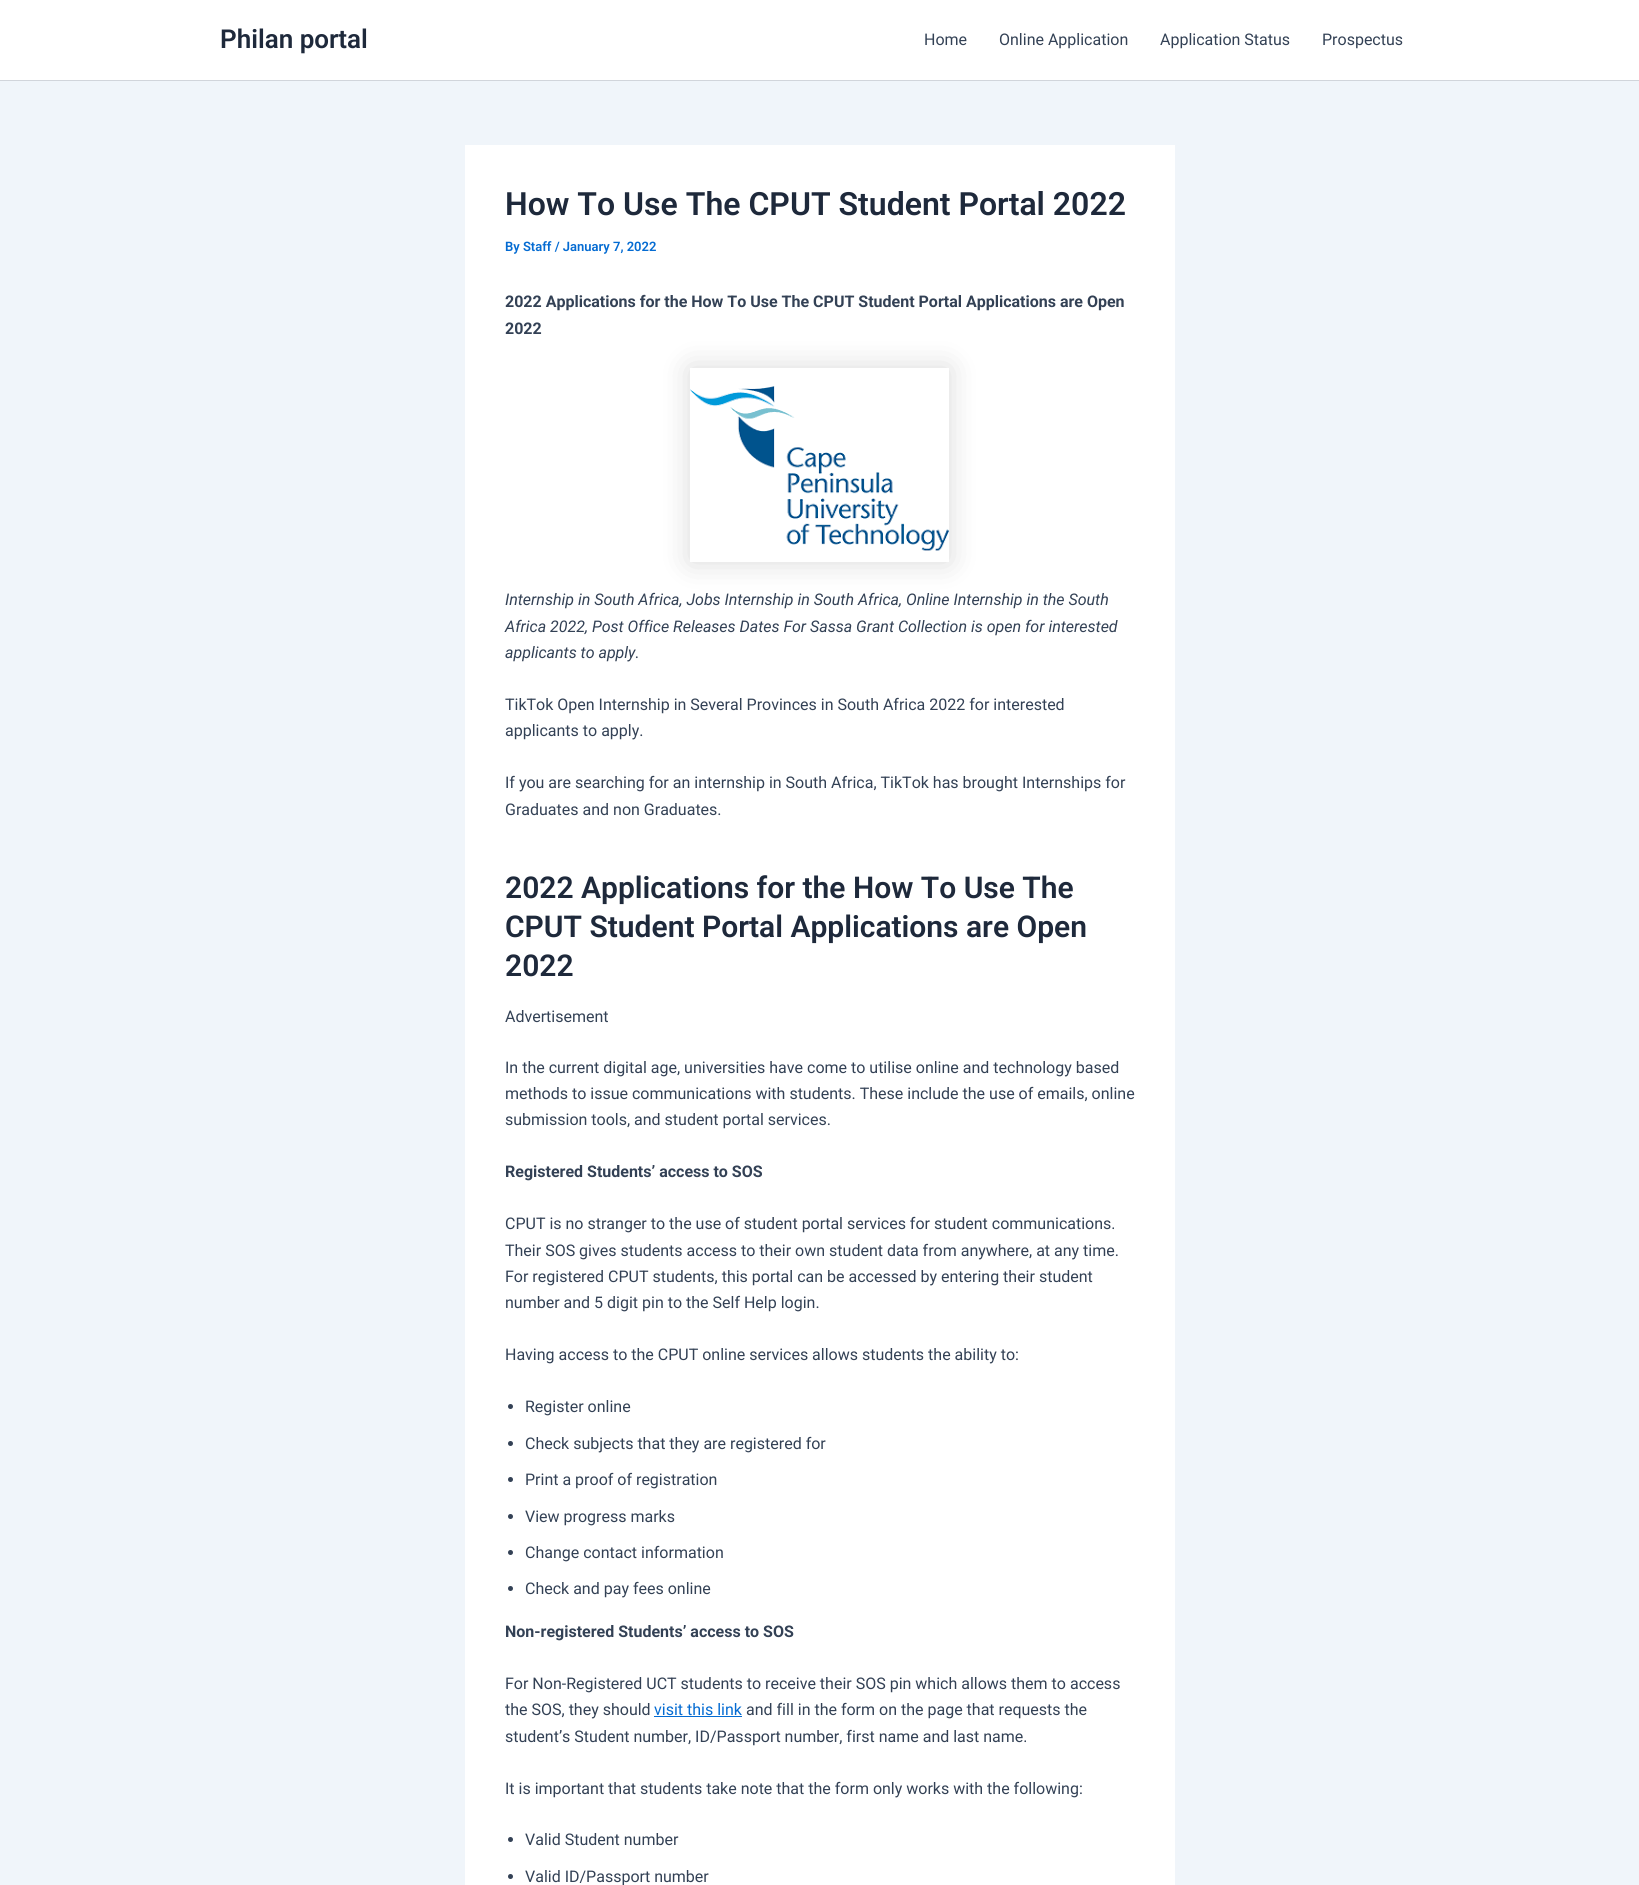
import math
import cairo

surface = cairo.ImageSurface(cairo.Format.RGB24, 1639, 1885)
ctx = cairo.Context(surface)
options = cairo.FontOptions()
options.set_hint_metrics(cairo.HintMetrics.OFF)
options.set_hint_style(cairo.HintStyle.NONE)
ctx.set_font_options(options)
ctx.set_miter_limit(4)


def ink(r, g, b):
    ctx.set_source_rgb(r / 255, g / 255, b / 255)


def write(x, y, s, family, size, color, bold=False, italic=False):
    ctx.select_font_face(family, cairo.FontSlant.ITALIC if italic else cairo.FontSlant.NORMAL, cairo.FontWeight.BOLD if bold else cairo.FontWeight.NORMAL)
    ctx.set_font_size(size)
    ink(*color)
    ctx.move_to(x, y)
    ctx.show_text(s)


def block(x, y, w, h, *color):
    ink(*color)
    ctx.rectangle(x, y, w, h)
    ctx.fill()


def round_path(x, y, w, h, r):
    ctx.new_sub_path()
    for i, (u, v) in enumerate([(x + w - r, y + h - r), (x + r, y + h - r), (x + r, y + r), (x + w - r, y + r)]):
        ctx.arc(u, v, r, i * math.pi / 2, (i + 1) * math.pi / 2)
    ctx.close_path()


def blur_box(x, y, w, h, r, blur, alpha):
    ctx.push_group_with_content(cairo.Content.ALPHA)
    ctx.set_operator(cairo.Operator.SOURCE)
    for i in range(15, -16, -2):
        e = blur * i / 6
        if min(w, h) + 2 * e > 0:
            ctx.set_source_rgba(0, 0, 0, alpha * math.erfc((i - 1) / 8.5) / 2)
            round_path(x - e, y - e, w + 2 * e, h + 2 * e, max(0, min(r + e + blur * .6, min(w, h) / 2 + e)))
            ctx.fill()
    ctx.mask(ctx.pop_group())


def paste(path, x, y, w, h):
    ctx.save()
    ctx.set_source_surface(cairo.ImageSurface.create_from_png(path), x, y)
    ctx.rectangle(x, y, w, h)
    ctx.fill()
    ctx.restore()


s1 = dict(family="Roboto SemiBold", size=26, color=(30, 41, 59))
s2 = dict(family="Roboto", size=16, color=(51, 65, 85))
s3 = dict(family="Roboto SemiBold", size=32, color=(30, 41, 59))
s4 = dict(family="Roboto SemiBold", size=13, color=(4, 107, 210))
s5 = dict(family="Roboto", size=16, color=(51, 65, 85), bold=True)
s6 = dict(family="Roboto", size=16, color=(51, 65, 85), italic=True)
s7 = dict(family="Roboto SemiBold", size=30, color=(30, 41, 59))
s8 = dict(family="Roboto", size=16, color=(4, 107, 210))

ink(240, 245, 250)
ctx.paint()
block(0, 0, 1639, 80, 255, 255, 255)
block(0, 80, 1639, 1, 209, 213, 219)
write(220, 48, "Philan portal", **s1)
write(924, 45, "Home", **s2)
write(999, 45, "Online Application", **s2)
write(1160, 45, "Application Status", **s2)
write(1322, 45, "Prospectus", **s2)
block(465, 145, 710, 1740, 255, 255, 255)
write(505, 215, "How To Use The CPUT Student Portal 2022", **s3)
write(505, 251, "By Staff / January 7, 2022", **s4)
write(505, 307, "2022 Applications for the How To Use The CPUT Student Portal Applications are Open", **s5)
write(505, 334, "2022", **s5)
ctx.save()
ctx.set_fill_rule(cairo.FillRule.EVEN_ODD)
ctx.new_path()
ctx.move_to(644, 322)
ctx.line_to(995, 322)
ctx.line_to(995, 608)
ctx.line_to(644, 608)
ctx.close_path()
ctx.move_to(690, 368)
ctx.line_to(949, 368)
ctx.line_to(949, 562)
ctx.line_to(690, 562)
ctx.close_path()
ctx.clip()
ink(0, 0, 0)
blur_box(690, 368, 259, 194, 0, 15, 0.15)
ctx.restore()
paste("pic1.png", 690, 386, 259, 165)
write(505, 605, "Internship in South Africa, Jobs Internship in South Africa, Online Internship in the South", **s6)
write(505, 632, "Africa 2022, Post Office Releases Dates For Sassa Grant Collection is open for interested", **s6)
write(505, 658, "applicants to apply.", **s6)
write(505, 710, "TikTok Open Internship in Several Provinces in South Africa 2022 for interested", **s2)
write(505, 736, "applicants to apply.", **s2)
write(505, 788, "If you are searching for an internship in South Africa, TikTok has brought Internships for", **s2)
write(505, 815, "Graduates and non Graduates.", **s2)
write(505, 898, "2022 Applications for the How To Use The", **s7)
write(505, 937, "CPUT Student Portal Applications are Open", **s7)
write(505, 976, "2022", **s7)
write(505, 1022, "Advertisement", **s2)
write(505, 1073, "In the current digital age, universities have come to utilise online and technology based", **s2)
write(505, 1099, "methods to issue communications with students. These include the use of emails, online", **s2)
write(505, 1125, "submission tools, and student portal services.", **s2)
write(505, 1177, "Registered Students’ access to SOS", **s5)
write(505, 1229, "CPUT is no stranger to the use of student portal services for student communications.", **s2)
write(505, 1256, "Their SOS gives students access to their own student data from anywhere, at any time.", **s2)
write(505, 1282, "For registered CPUT students, this portal can be accessed by entering their student", **s2)
write(505, 1308, "number and 5 digit pin to the Self Help login.", **s2)
write(505, 1360, "Having access to the CPUT online services allows students the ability to:", **s2)
ctx.new_path()
ctx.arc(510.5, 1406.5, 2.5, 0, 2 * math.pi)
ctx.fill()
write(525, 1412, "Register online", **s2)
ctx.new_path()
ctx.arc(510.5, 1443.5, 2.5, 0, 2 * math.pi)
ctx.fill()
write(525, 1449, "Check subjects that they are registered for", **s2)
ctx.new_path()
ctx.arc(510.5, 1479.5, 2.5, 0, 2 * math.pi)
ctx.fill()
write(525, 1485, "Print a proof of registration", **s2)
ctx.new_path()
ctx.arc(510.5, 1516.5, 2.5, 0, 2 * math.pi)
ctx.fill()
write(525, 1522, "View progress marks", **s2)
ctx.new_path()
ctx.arc(510.5, 1552.5, 2.5, 0, 2 * math.pi)
ctx.fill()
write(525, 1558, "Change contact information", **s2)
ctx.new_path()
ctx.arc(510.5, 1588.5, 2.5, 0, 2 * math.pi)
ctx.fill()
write(525, 1594, "Check and pay fees online", **s2)
write(505, 1637, "Non-registered Students’ access to SOS", **s5)
write(505, 1689, "For Non-Registered UCT students to receive their SOS pin which allows them to access", **s2)
write(505, 1715, "the SOS, they should", **s2)
write(654, 1715, "visit this link", **s8)
block(654, 1716, 88, 1, 4, 107, 210)
write(746, 1715, "and fill in the form on the page that requests the", **s2)
write(505, 1742, "student’s Student number, ID/Passport number, first name and last name.", **s2)
write(505, 1794, "It is important that students take note that the form only works with the following:", **s2)
ctx.new_path()
ctx.arc(510.5, 1839.5, 2.5, 0, 2 * math.pi)
ctx.fill()
write(525, 1845, "Valid Student number", **s2)
ctx.new_path()
ctx.arc(510.5, 1876.5, 2.5, 0, 2 * math.pi)
ctx.fill()
write(525, 1882, "Valid ID/Passport number", **s2)
surface.write_to_png("screenshot.png")
